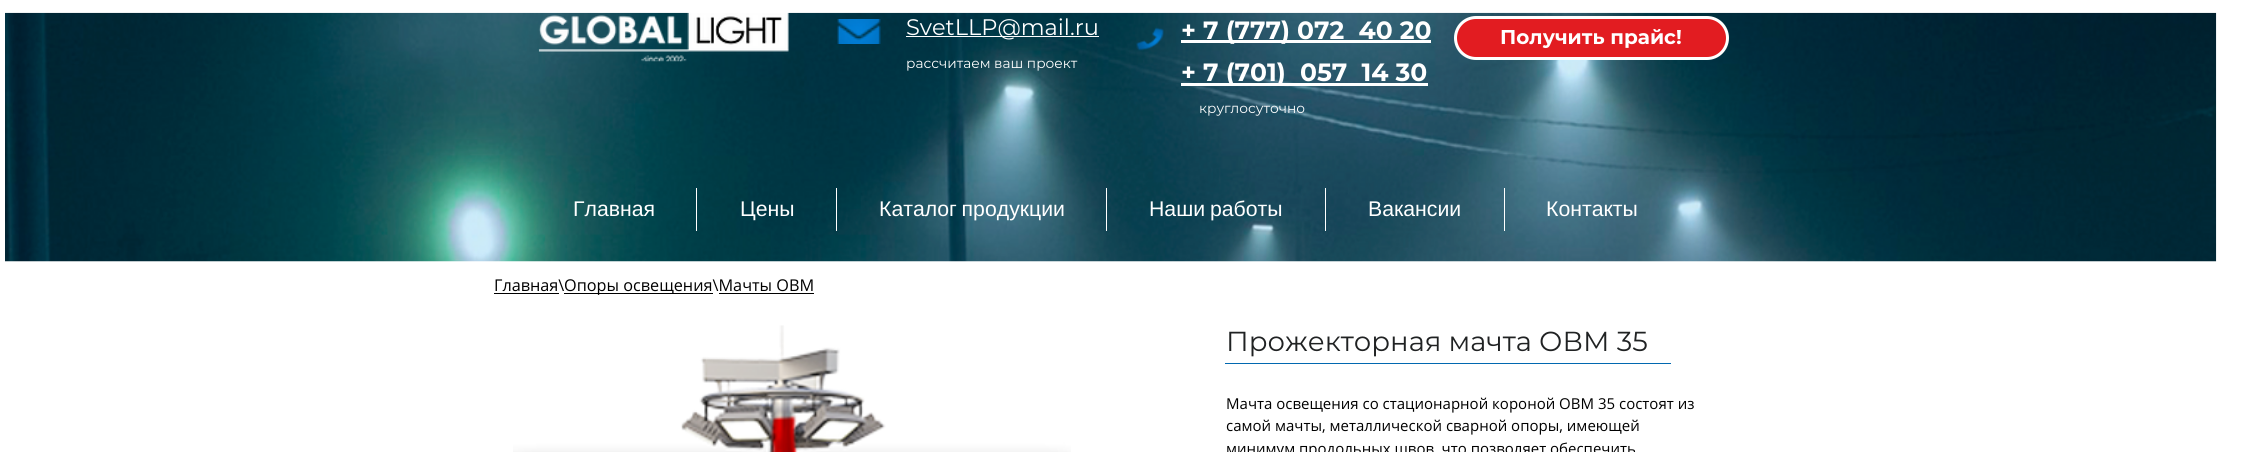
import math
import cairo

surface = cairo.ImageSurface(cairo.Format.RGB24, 2262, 452)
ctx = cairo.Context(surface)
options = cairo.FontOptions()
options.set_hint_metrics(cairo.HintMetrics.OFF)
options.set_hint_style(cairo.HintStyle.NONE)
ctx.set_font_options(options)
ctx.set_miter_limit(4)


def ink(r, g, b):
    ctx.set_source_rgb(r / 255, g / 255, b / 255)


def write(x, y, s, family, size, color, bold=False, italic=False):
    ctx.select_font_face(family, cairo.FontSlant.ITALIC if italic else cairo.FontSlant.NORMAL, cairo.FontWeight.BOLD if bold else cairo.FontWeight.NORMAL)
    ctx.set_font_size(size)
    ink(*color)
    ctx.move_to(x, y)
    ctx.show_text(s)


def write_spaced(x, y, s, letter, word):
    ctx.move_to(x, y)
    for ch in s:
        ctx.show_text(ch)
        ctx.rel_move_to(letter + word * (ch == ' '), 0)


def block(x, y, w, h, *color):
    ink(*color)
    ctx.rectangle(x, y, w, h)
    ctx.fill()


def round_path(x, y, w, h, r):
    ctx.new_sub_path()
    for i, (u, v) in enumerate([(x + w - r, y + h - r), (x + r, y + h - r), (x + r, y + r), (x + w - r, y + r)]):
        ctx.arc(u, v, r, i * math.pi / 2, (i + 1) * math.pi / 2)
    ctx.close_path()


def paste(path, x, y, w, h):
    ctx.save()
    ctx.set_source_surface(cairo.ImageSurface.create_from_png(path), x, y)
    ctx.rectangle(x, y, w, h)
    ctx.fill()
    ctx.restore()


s1 = dict(family="Montserrat", size=22.5, color=(255, 255, 255))
s2 = dict(family="Montserrat", size=25, color=(255, 255, 255), bold=True)
s3 = dict(family="Montserrat", size=20, color=(255, 255, 255), bold=True)
s4 = dict(family="Montserrat", size=13.75, color=(255, 255, 255))
s5 = dict(family="Liberation Sans", size=21.25, color=(255, 255, 255))
s6 = dict(family="Open Sans", size=16.25, color=(0, 0, 0))
s7 = dict(family="Montserrat", size=27.5, color=(32, 34, 35))
s8 = dict(family="Open Sans", size=15, color=(0, 0, 0))

ink(255, 255, 255)
ctx.paint()
paste("pic4.png", 5, 12, 2212, 250)
paste("pic1.png", 538, 12, 251, 50)
paste("pic2.png", 837, 19, 44, 25)
block(906, 36, 193, 1, 255, 255, 255)
write(906, 35, "SvetLLP@mail.ru", **s1)
paste("pic3.png", 1136, 27, 28, 24)
block(1181, 40, 250, 3, 255, 255, 255)
write(1181, 39, "+ 7 (777) 072  40 20", **s2)
ink(226, 28, 33)
round_path(1455.5, 17.5, 272, 41, 20.5)
ctx.fill_preserve()
ink(255, 255, 255)
ctx.set_line_width(3)
ctx.stroke()
write(1500, 44, "Получить прайс!", **s3)
write(906, 68, "рассчитаем ваш проект", **s4)
block(1181, 83, 247, 3, 255, 255, 255)
write(1181, 81, "+ 7 (701)  057  14 30", **s2)
write(1199, 113, "круглосуточно", **s4)
write(573, 216, "Главная", **s5)
block(696, 188, 1, 43, 255, 255, 255)
write(740, 216, "Цены", **s5)
block(836, 188, 1, 43, 255, 255, 255)
write_spaced(879, 216, "Каталог продукции", 0, -1)
block(1106, 188, 1, 43, 255, 255, 255)
write_spaced(1149, 216, "Наши работы", 0, -1)
block(1325, 188, 1, 43, 255, 255, 255)
write(1368, 216, "Вакансии", **s5)
block(1504, 188, 1, 43, 255, 255, 255)
write(1546, 216, "Контакты", **s5)
write(494, 291, "Главная\\", **s6)
block(494, 293, 65, 1, 0, 0, 0)
block(564, 293, 149, 1, 0, 0, 0)
write(564, 291, "Опоры освещения\\Мачты ОВМ", **s6)
block(719, 293, 95, 1, 0, 0, 0)
paste("pic5.png", 513, 325, 558, 127)
write(1226, 351, "Прожекторная мачта ОВМ 35", **s7)
block(1225, 363, 446, 1, 1, 104, 176)
write(1226, 409, "Мачта освещения со стационарной короной ОВМ 35 состоят из", **s8)
write(1226, 431, "самой мачты, металлической сварной опоры, имеющей", **s8)
write(1226, 454, "минимум продольных швов, что позволяет обеспечить", **s8)
surface.write_to_png("screenshot.png")
